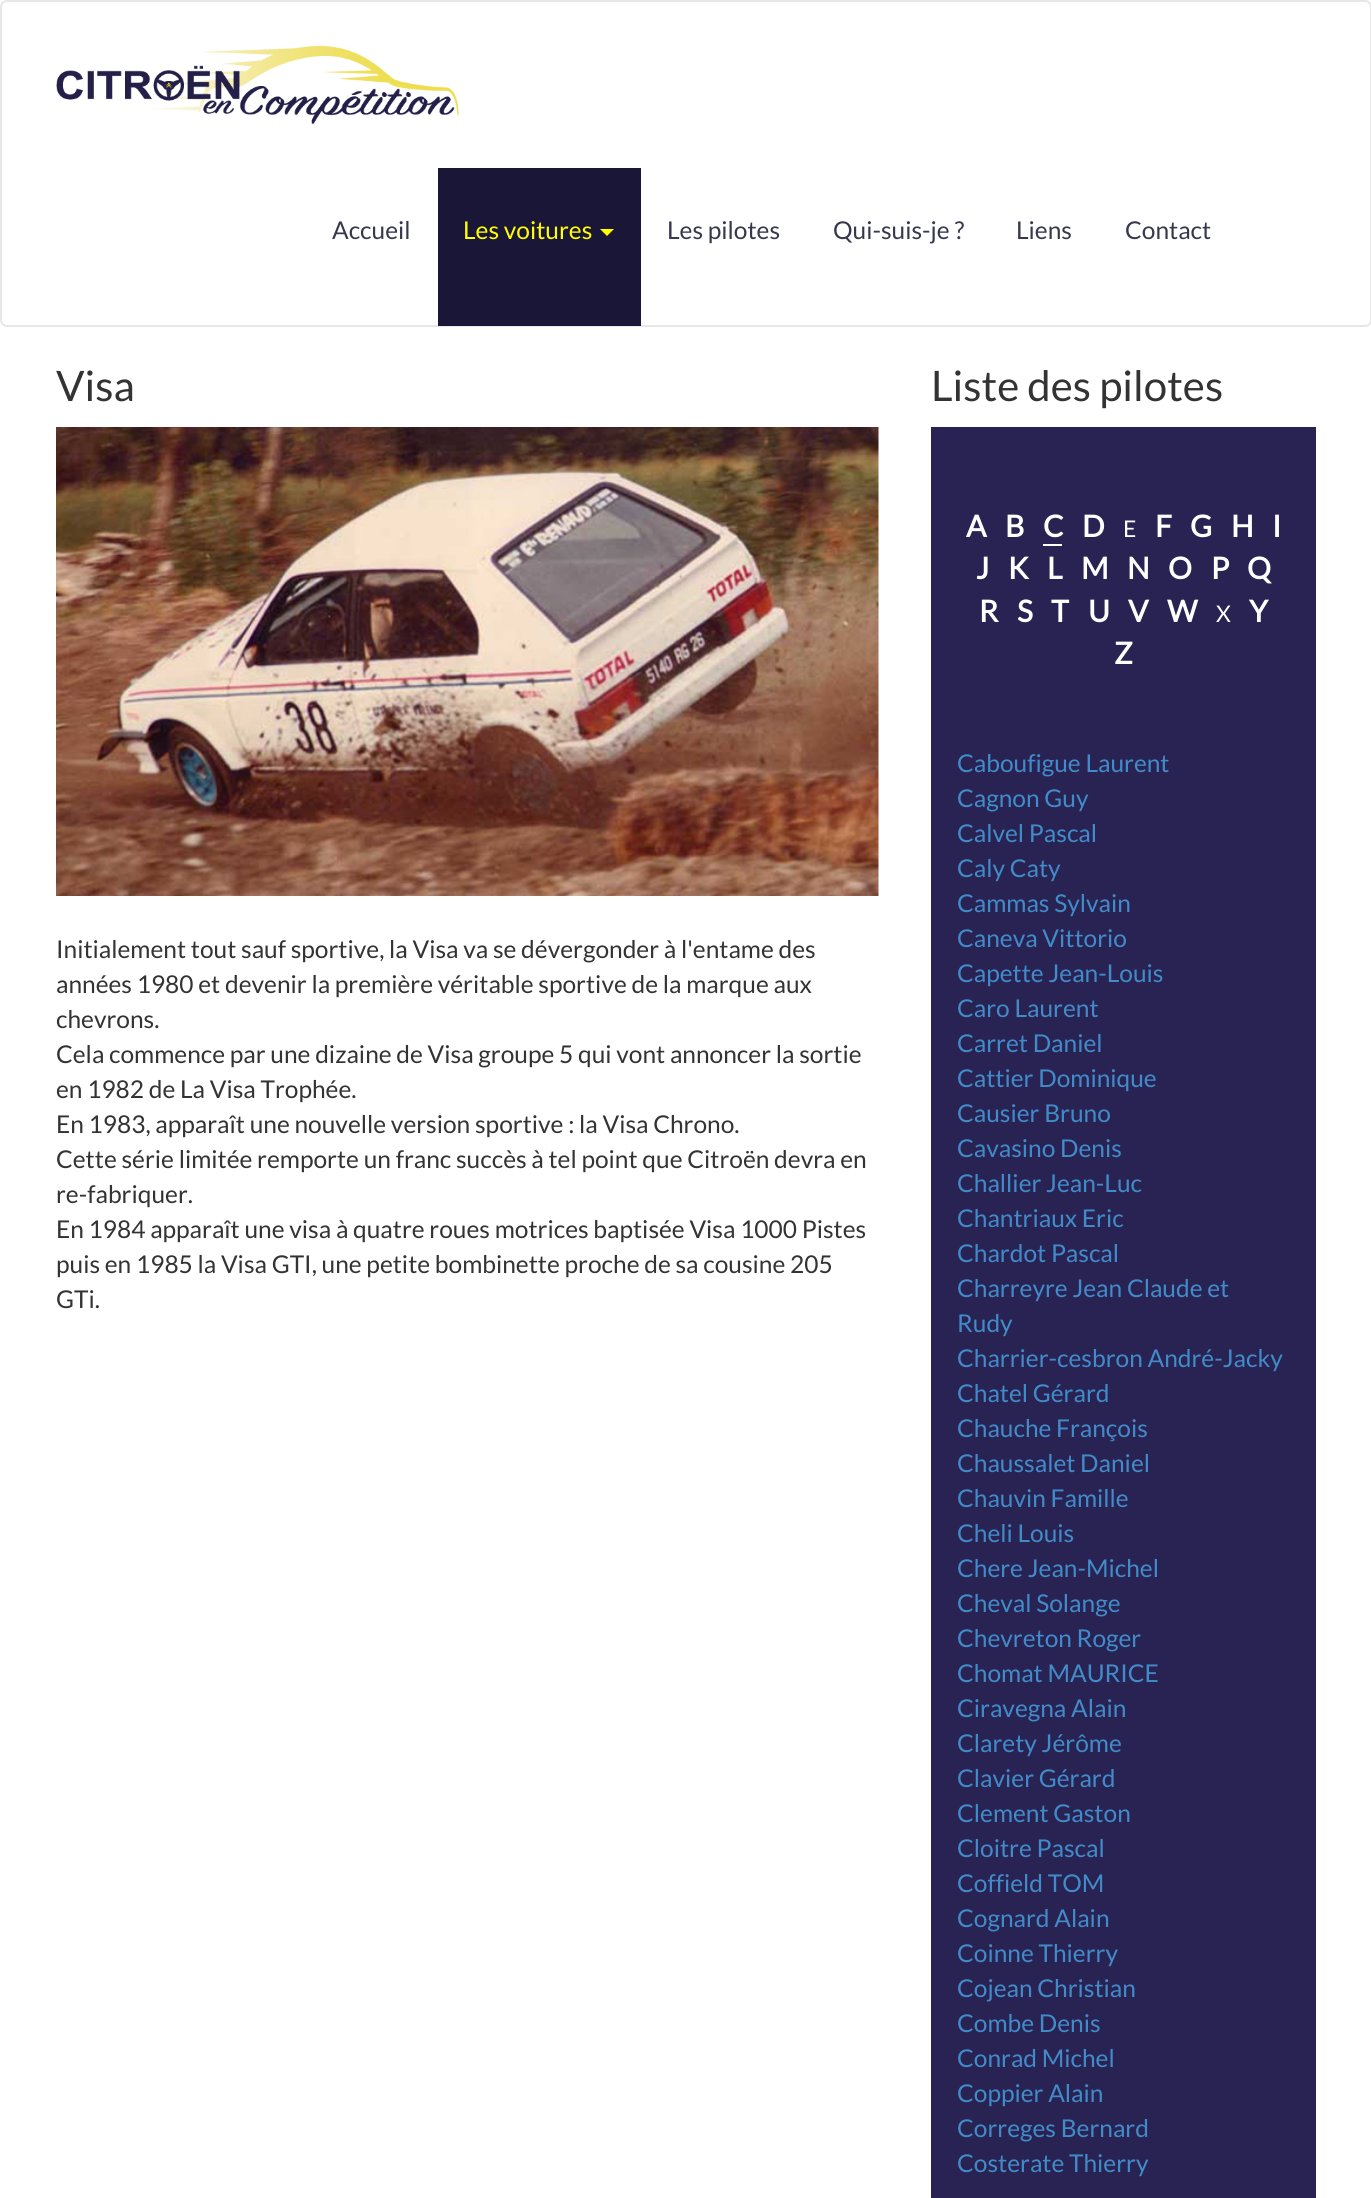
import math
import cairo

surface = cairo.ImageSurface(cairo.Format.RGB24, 1371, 2198)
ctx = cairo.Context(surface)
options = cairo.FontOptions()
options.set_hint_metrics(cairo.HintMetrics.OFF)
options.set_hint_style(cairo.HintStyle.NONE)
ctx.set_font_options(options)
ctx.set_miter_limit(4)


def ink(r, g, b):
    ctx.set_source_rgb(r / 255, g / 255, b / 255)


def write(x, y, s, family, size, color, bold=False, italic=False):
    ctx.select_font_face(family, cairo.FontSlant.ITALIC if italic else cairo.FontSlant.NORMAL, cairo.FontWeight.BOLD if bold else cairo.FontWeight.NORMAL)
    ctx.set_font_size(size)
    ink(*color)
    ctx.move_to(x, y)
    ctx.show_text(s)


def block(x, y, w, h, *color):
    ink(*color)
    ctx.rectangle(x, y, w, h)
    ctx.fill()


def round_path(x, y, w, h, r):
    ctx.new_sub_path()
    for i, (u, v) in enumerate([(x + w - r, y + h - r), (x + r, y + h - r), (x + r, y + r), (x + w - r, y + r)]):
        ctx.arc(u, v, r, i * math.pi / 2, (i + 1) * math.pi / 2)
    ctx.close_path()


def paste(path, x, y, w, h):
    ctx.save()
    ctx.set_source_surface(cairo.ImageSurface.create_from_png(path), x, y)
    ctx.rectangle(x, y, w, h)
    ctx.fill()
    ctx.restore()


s1 = dict(family="Lato", size=24.5, color=(55, 56, 77))
s2 = dict(family="Lato", size=24.5, color=(255, 255, 0))
s3 = dict(family="Lato", size=42, color=(51, 51, 51))
s4 = dict(family="Lato", size=24.5, color=(51, 51, 51))
s5 = dict(family="Lato", size=30, color=(255, 255, 255), bold=True)
s6 = dict(family="Lato", size=23, color=(255, 255, 255))
s7 = dict(family="Lato", size=24.5, color=(66, 139, 202))

ink(255, 255, 255)
ctx.paint()
round_path(1, 1, 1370, 325, 6)
ink(231, 231, 231)
ctx.stroke()
paste("pic1.png", 56, 45, 403, 80)
write(332, 239, "Accueil", **s1)
block(438, 168, 203, 158, 26, 22, 56)
write(463, 239, "Les voitures", **s2)
ctx.new_path()
ctx.move_to(600, 229)
ctx.line_to(614, 229)
ctx.line_to(607, 236)
ctx.close_path()
ctx.fill()
write(667, 239, "Les pilotes", **s1)
write(833, 239, "Qui-suis-je ?", **s1)
write(1016, 239, "Liens", **s1)
write(1125, 239, "Contact", **s1)
write(56, 401, "Visa", **s3)
paste("pic2.png", 56, 427, 823, 469)
write(56, 958, "Initialement tout sauf sportive, la Visa va se dévergonder à l'entame des", **s4)
write(56, 993, "années 1980 et devenir la première véritable sportive de la marque aux", **s4)
write(56, 1028, "chevrons.", **s4)
write(56, 1063, "Cela commence par une dizaine de Visa groupe 5 qui vont annoncer la sortie", **s4)
write(56, 1098, "en 1982 de La Visa Trophée.", **s4)
write(56, 1133, "En 1983, apparaît une nouvelle version sportive : la Visa Chrono.", **s4)
write(56, 1168, "Cette série limitée remporte un franc succès à tel point que Citroën devra en", **s4)
write(56, 1203, "re-fabriquer.", **s4)
write(56, 1238, "En 1984 apparaît une visa à quatre roues motrices baptisée Visa 1000 Pistes", **s4)
write(56, 1273, "puis en 1985 la Visa GTI, une petite bombinette proche de sa cousine 205", **s4)
write(56, 1308, "GTi.", **s4)
write(931, 401, "Liste des pilotes", **s3)
block(931, 427, 385, 1771, 40, 35, 82)
write(966, 537, "A", **s5)
write(1005, 537, "B", **s5)
write(1043, 537, "C", **s5)
block(1043, 544, 19, 2, 255, 255, 255)
write(1082, 537, "D", **s5)
write(1123, 537, "E", **s6)
write(1155, 537, "F", **s5)
write(1190, 537, "G", **s5)
write(1231, 537, "H", **s5)
write(1272, 537, "I", **s5)
write(976, 579, "J", **s5)
write(1008, 579, "K", **s5)
write(1047, 579, "L", **s5)
write(1081, 579, "M", **s5)
write(1127, 579, "N", **s5)
write(1168, 579, "O", **s5)
write(1211, 579, "P", **s5)
write(1247, 579, "Q", **s5)
write(979, 622, "R", **s5)
write(1017, 622, "S", **s5)
write(1051, 622, "T", **s5)
write(1088, 622, "U", **s5)
write(1128, 622, "V", **s5)
write(1167, 622, "W", **s5)
write(1216, 622, "X", **s6)
write(1249, 622, "Y", **s5)
write(1114, 664, "Z", **s5)
write(957, 772, "Caboufigue Laurent", **s7)
write(957, 807, "Cagnon Guy", **s7)
write(957, 842, "Calvel Pascal", **s7)
write(957, 877, "Caly Caty", **s7)
write(957, 912, "Cammas Sylvain", **s7)
write(957, 947, "Caneva Vittorio", **s7)
write(957, 982, "Capette Jean-Louis", **s7)
write(957, 1017, "Caro Laurent", **s7)
write(957, 1052, "Carret Daniel", **s7)
write(957, 1087, "Cattier Dominique", **s7)
write(957, 1122, "Causier Bruno", **s7)
write(957, 1157, "Cavasino Denis", **s7)
write(957, 1192, "Challier Jean-Luc", **s7)
write(957, 1227, "Chantriaux Eric", **s7)
write(957, 1262, "Chardot Pascal", **s7)
write(957, 1297, "Charreyre Jean Claude et", **s7)
write(957, 1332, "Rudy", **s7)
write(957, 1367, "Charrier-cesbron André-Jacky", **s7)
write(957, 1402, "Chatel Gérard", **s7)
write(957, 1437, "Chauche François", **s7)
write(957, 1472, "Chaussalet Daniel", **s7)
write(957, 1507, "Chauvin Famille", **s7)
write(957, 1542, "Cheli Louis", **s7)
write(957, 1577, "Chere Jean-Michel", **s7)
write(957, 1612, "Cheval Solange", **s7)
write(957, 1647, "Chevreton Roger", **s7)
write(957, 1682, "Chomat MAURICE", **s7)
write(957, 1717, "Ciravegna Alain", **s7)
write(957, 1752, "Clarety Jérôme", **s7)
write(957, 1787, "Clavier Gérard", **s7)
write(957, 1822, "Clement Gaston", **s7)
write(957, 1857, "Cloitre Pascal", **s7)
write(957, 1892, "Coffield TOM", **s7)
write(957, 1927, "Cognard Alain", **s7)
write(957, 1962, "Coinne Thierry", **s7)
write(957, 1997, "Cojean Christian", **s7)
write(957, 2032, "Combe Denis", **s7)
write(957, 2067, "Conrad Michel", **s7)
write(957, 2102, "Coppier Alain", **s7)
write(957, 2137, "Correges Bernard", **s7)
write(957, 2172, "Costerate Thierry", **s7)
surface.write_to_png("screenshot.png")
